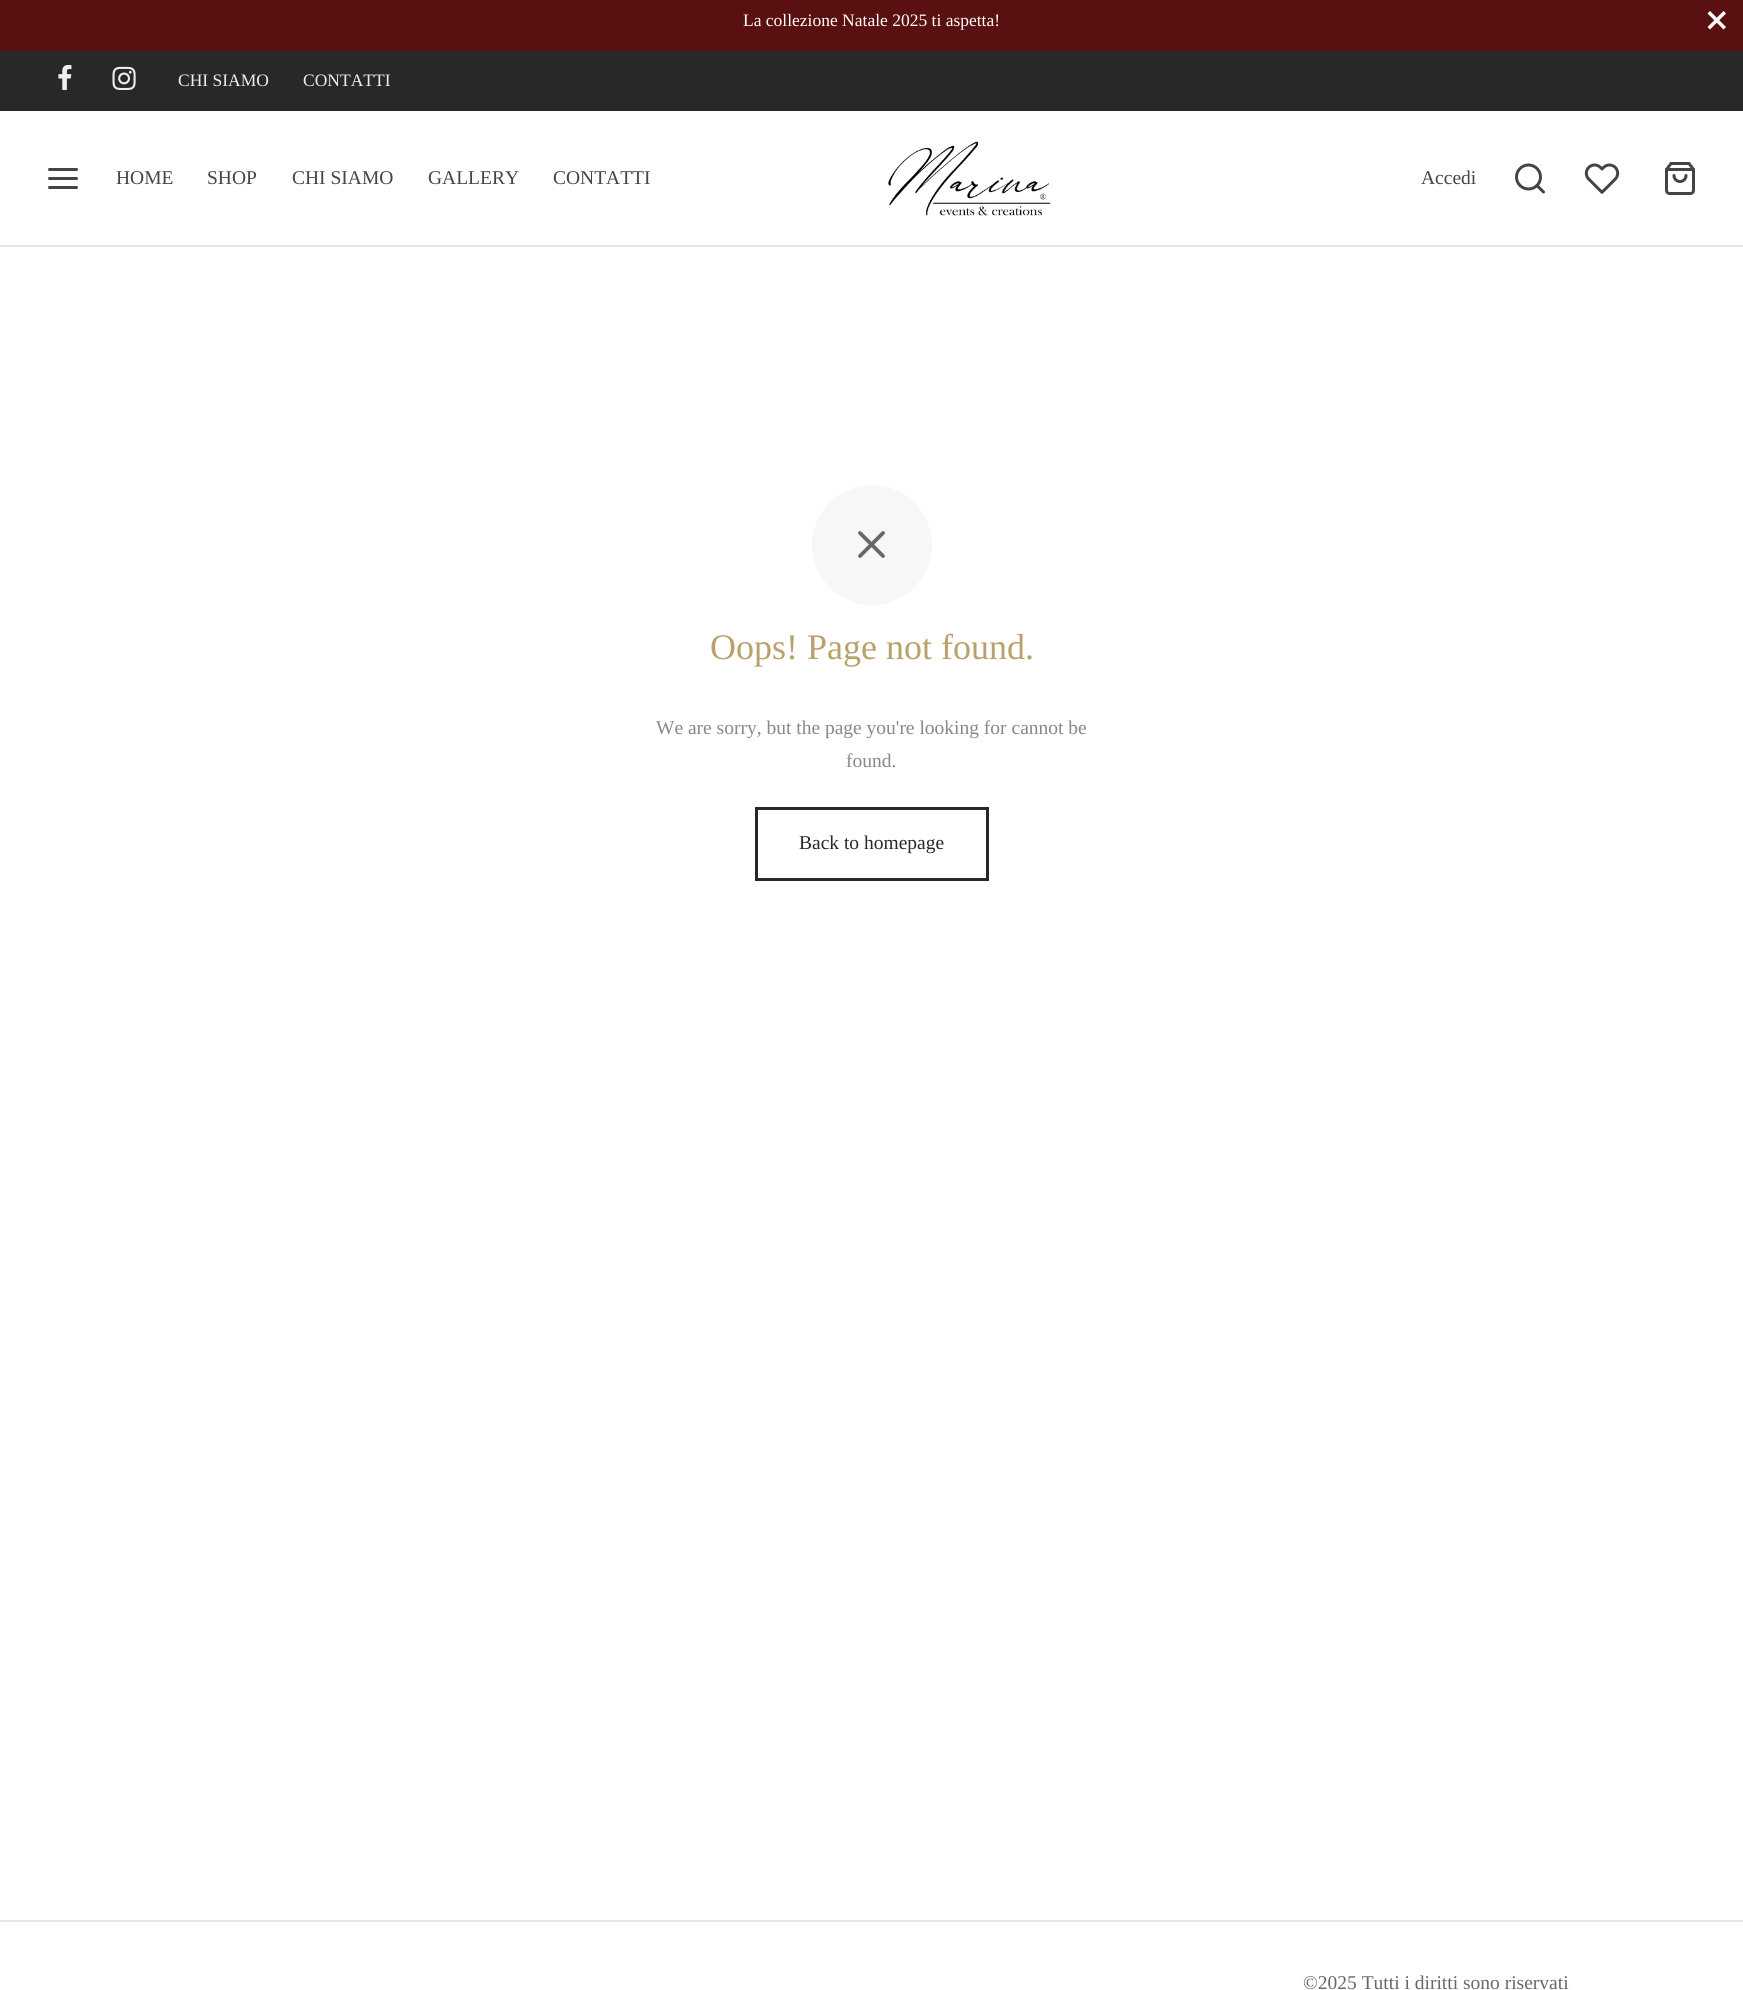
import math
import cairo

surface = cairo.ImageSurface(cairo.Format.RGB24, 1743, 1990)
ctx = cairo.Context(surface)
options = cairo.FontOptions()
options.set_hint_metrics(cairo.HintMetrics.OFF)
options.set_hint_style(cairo.HintStyle.NONE)
ctx.set_font_options(options)
ctx.set_miter_limit(4)


def ink(r, g, b):
    ctx.set_source_rgb(r / 255, g / 255, b / 255)


def write(x, y, s, family, size, color, bold=False, italic=False):
    ctx.select_font_face(family, cairo.FontSlant.ITALIC if italic else cairo.FontSlant.NORMAL, cairo.FontWeight.BOLD if bold else cairo.FontWeight.NORMAL)
    ctx.set_font_size(size)
    ink(*color)
    ctx.move_to(x, y)
    ctx.show_text(s)


def block(x, y, w, h, *color):
    ink(*color)
    ctx.rectangle(x, y, w, h)
    ctx.fill()


def paste(path, x, y, w, h):
    ctx.save()
    ctx.set_source_surface(cairo.ImageSurface.create_from_png(path), x, y)
    ctx.rectangle(x, y, w, h)
    ctx.fill()
    ctx.restore()


s1 = dict(family="Liberation Serif", size=17.5, color=(255, 255, 255))
s2 = dict(family="Liberation Serif", size=17.5, color=(238, 238, 238))
s3 = dict(family="Liberation Serif", size=19.5, color=(68, 68, 68))
s4 = dict(family="Liberation Serif", size=36, color=(185, 161, 107))
s5 = dict(family="Liberation Serif", size=19.5, color=(136, 136, 136))
s6 = dict(family="Liberation Serif", size=19.5, color=(40, 40, 40))
s7 = dict(family="Liberation Serif", size=19.5, color=(104, 104, 104))

ink(255, 255, 255)
ctx.paint()
block(0, 0, 1743, 51, 90, 16, 16)
write(743, 26, "La collezione Natale 2025 ti aspetta!", **s1)
ctx.new_path()
ctx.move_to(1710, 11)
ctx.line_to(1726, 27)
ctx.line_to(1723.5, 29.5)
ctx.line_to(1707.5, 13.5)
ctx.close_path()
ctx.fill()
ctx.new_path()
ctx.move_to(1707.5, 27)
ctx.line_to(1723.5, 11)
ctx.line_to(1726, 13.5)
ctx.line_to(1710, 29.5)
ctx.close_path()
ctx.fill()
block(0, 51, 1743, 60, 40, 40, 40)
paste("pic1.png", 58, 64, 14, 26)
paste("pic2.png", 112, 66, 24, 24)
write(178, 86, "CHI SIAMO", **s2)
write(303, 86, "CONTATTI", **s2)
ctx.new_path()
ctx.move_to(49.5, 178.5)
ctx.line_to(76.5, 178.5)
ctx.move_to(49.5, 169.5)
ctx.line_to(76.5, 169.5)
ctx.move_to(49.5, 187.5)
ctx.line_to(76.5, 187.5)
ink(68, 68, 68)
ctx.set_line_width(3)
ctx.set_line_cap(cairo.LineCap.ROUND)
ctx.set_line_join(cairo.LineJoin.ROUND)
ctx.stroke()
write(116, 184, "HOME", **s3)
write(207, 184, "SHOP", **s3)
write(292, 184, "CHI SIAMO", **s3)
write(428, 184, "GALLERY", **s3)
write(553, 184, "CONTATTI", **s3)
paste("pic3.png", 888, 141, 163, 75)
write(1421, 184, "Accedi", **s3)
ctx.new_path()
ctx.arc(1528.5, 177, 12, 0, 2 * math.pi)
ctx.set_line_cap(cairo.LineCap.BUTT)
ctx.set_line_join(cairo.LineJoin.MITER)
ctx.stroke()
ctx.new_path()
ctx.move_to(1543.5, 192)
ctx.line_to(1537, 185.5)
ctx.set_line_cap(cairo.LineCap.ROUND)
ctx.set_line_join(cairo.LineJoin.ROUND)
ctx.stroke()
paste("pic4.png", 1584, 163, 36, 31)
paste("pic5.png", 1665, 162, 30, 33)
block(0, 245, 1743, 2, 230, 230, 230)
ink(247, 247, 247)
ctx.arc(872, 545, 60, 0, 2 * math.pi)
ctx.fill()
ctx.new_path()
ctx.move_to(883, 533)
ctx.line_to(860, 556)
ctx.move_to(860, 533)
ctx.line_to(883, 556)
ink(104, 104, 104)
ctx.set_line_width(3.8)
ctx.stroke()
write(710, 659, "Oops! Page not found.", **s4)
write(656, 734, "We are sorry, but the page you're looking for cannot be", **s5)
write(846, 767, "found.", **s5)
ctx.rectangle(756.5, 808.5, 231, 71)
ink(40, 40, 40)
ctx.set_line_width(3)
ctx.set_line_cap(cairo.LineCap.BUTT)
ctx.set_line_join(cairo.LineJoin.MITER)
ctx.stroke()
write(799, 849, "Back to homepage", **s6)
block(0, 1920, 1743, 2, 230, 230, 230)
write(1303, 1989, "©2025 Tutti i diritti sono riservati", **s7)
surface.write_to_png("screenshot.png")
